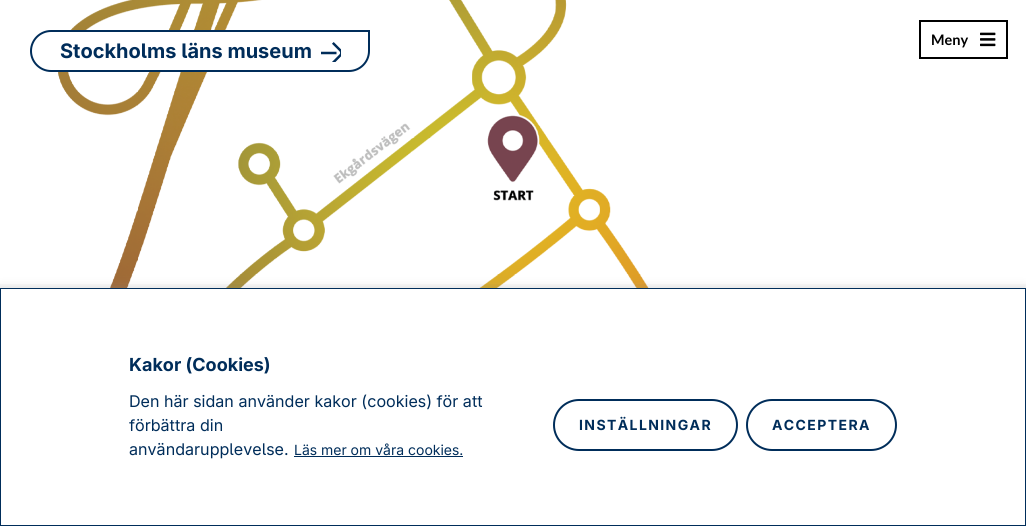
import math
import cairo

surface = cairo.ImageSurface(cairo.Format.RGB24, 1026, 526)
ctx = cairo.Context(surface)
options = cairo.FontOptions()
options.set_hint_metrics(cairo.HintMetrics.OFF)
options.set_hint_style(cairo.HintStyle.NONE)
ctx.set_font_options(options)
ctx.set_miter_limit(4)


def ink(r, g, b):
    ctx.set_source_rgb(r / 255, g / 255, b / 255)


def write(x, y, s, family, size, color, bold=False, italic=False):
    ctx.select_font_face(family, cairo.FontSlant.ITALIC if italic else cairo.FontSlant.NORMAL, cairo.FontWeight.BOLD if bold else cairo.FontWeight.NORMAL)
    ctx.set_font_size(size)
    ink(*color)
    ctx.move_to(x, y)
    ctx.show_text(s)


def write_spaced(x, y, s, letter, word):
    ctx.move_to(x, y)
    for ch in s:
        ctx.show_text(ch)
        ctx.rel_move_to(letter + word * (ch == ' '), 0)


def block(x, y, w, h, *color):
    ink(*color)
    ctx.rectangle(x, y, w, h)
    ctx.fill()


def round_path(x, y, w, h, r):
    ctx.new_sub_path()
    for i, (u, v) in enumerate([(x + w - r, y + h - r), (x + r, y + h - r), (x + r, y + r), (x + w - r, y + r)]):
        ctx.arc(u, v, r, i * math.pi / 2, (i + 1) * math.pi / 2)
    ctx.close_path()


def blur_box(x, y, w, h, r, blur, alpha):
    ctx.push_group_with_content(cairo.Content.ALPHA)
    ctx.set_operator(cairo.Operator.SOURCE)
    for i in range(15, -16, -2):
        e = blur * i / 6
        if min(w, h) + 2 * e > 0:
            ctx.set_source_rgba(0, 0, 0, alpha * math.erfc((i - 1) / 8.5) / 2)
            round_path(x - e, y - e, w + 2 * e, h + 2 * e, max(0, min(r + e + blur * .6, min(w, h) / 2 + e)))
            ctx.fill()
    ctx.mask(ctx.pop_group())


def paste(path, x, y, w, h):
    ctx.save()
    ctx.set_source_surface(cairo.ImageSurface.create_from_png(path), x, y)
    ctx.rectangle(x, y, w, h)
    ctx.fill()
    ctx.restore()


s1 = dict(family="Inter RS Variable", size=20, color=(0, 45, 90), bold=True)
s2 = dict(family="Lato", size=14.5, color=(0, 0, 0), bold=True)
s3 = dict(family="Inter RS Variable", size=18, color=(0, 45, 90), bold=True)
s4 = dict(family="Inter RS Variable", size=16.1, color=(0, 45, 90))
s5 = dict(family="Inter RS Variable", size=14, color=(0, 45, 90))

ink(255, 255, 255)
ctx.paint()
paste("pic1.png", 58, 0, 591, 288)
gradient = cairo.LinearGradient(513, 277, 513, 325)
gradient.add_color_stop_rgba(0, 0, 0, 0, 0)
gradient.add_color_stop_rgba(1, 0, 0, 0, 0.15)
ctx.set_source(gradient)
ctx.rectangle(0, 284, 1026, 4)
ctx.fill()
ink(255, 255, 255)
ctx.new_path()
ctx.move_to(51, 31)
ctx.line_to(369, 31)
ctx.line_to(369, 51)
ctx.curve_to(369, 62, 360, 71, 349, 71)
ctx.line_to(51, 71)
ctx.curve_to(40, 71, 31, 62, 31, 51)
ctx.curve_to(31, 40, 40, 31, 51, 31)
ctx.close_path()
ctx.fill_preserve()
ink(0, 45, 90)
ctx.stroke()
write(60, 58, "Stockholms läns museum", **s1)
paste("pic2.png", 321, 42, 20, 20)
ctx.rectangle(920, 21, 87, 37)
ink(0, 0, 0)
ctx.stroke()
write(931, 45, "Meny", **s2)
paste("pic3.png", 980, 32, 16, 15)
ink(172, 171, 171)
blur_box(0, 287, 1026, 238, 0, 5, 0.3)
ink(255, 255, 255)
ctx.rectangle(0.5, 288.5, 1025, 237)
ctx.fill_preserve()
ink(0, 45, 90)
ctx.set_line_width(1)
ctx.stroke()
write(129, 371, "Kakor (Cookies)", **s3)
write(129, 407, "Den här sidan använder kakor (cookies) för att", **s4)
write(129, 431, "förbättra din", **s4)
write(129, 455, "användarupplevelse.", **s4)
write(294, 455, "Läs mer om våra cookies.", **s5)
block(294, 456, 169, 1, 0, 45, 90)
round_path(554, 400, 183, 50, 25)
ctx.set_line_width(2)
ctx.stroke()
ctx.select_font_face("Inter RS Variable", cairo.FontSlant.NORMAL, cairo.FontWeight.BOLD)
write_spaced(579, 430, "INSTÄLLNINGAR", 1.4, 0)
round_path(747, 400, 149, 50, 25)
ctx.stroke()
write_spaced(772, 430, "ACCEPTERA", 1.4, 0)
surface.write_to_png("screenshot.png")
